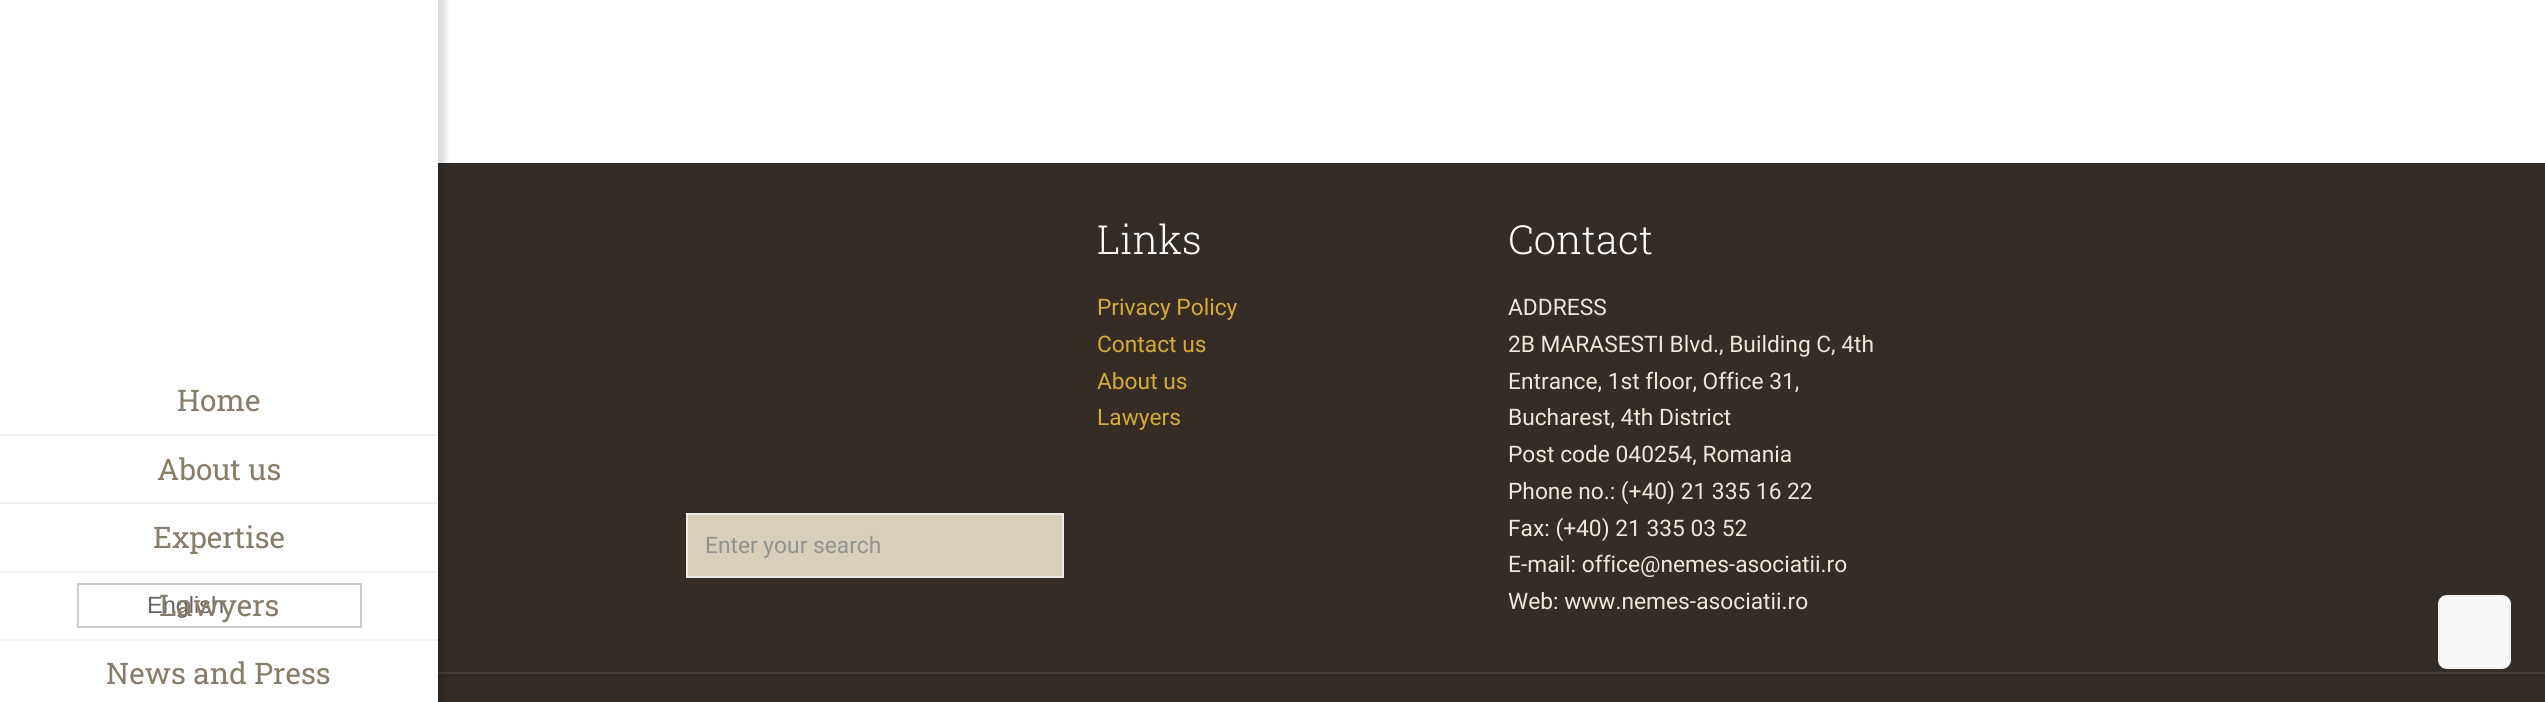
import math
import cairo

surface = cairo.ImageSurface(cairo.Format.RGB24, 2545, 702)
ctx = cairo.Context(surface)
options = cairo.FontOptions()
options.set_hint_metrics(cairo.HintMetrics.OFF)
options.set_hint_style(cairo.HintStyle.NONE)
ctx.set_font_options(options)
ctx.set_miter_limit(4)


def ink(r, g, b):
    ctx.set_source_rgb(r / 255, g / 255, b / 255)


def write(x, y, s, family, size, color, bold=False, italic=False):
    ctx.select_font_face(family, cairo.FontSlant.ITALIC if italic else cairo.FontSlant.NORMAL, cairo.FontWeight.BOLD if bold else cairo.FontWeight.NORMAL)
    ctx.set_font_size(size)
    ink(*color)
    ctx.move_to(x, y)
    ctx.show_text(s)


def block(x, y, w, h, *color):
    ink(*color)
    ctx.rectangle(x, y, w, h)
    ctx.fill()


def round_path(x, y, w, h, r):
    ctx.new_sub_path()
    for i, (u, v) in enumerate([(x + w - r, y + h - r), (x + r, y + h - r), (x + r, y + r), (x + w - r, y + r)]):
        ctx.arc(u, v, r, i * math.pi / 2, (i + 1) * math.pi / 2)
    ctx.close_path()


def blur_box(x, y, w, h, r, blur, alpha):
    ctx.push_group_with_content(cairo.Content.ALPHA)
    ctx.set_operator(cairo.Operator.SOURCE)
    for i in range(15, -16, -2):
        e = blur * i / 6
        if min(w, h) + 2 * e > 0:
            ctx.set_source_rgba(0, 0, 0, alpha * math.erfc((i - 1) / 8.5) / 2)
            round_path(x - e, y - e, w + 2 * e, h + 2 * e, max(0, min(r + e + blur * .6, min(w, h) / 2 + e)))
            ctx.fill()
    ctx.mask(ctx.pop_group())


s1 = dict(family="Roboto Slab", size=29.75, color=(137, 125, 104))
s2 = dict(family="Liberation Sans", size=23.5, color=(102, 102, 102))
s3 = dict(family="Roboto", size=22.75, color=(146, 146, 146))
s4 = dict(family="Roboto Slab Light", size=40, color=(255, 255, 255))
s5 = dict(family="Roboto", size=22.75, color=(214, 170, 52))
s6 = dict(family="Roboto", size=22.75, color=(236, 230, 220))

ink(255, 255, 255)
ctx.paint()
block(438, 163, 2107, 539, 52, 44, 37)
block(438, 672, 2107, 2, 72, 65, 59)
ink(0, 0, 0)
blur_box(0, -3, 445, 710, 0, 3.5, 0.15)
block(0, 0, 438, 702, 255, 255, 255)
block(0, 434, 438, 2, 242, 242, 242)
write(177, 411, "Home", **s1)
block(0, 502, 438, 2, 242, 242, 242)
write(157, 480, "About us", **s1)
block(0, 571, 438, 2, 242, 242, 242)
write(153, 548, "Expertise", **s1)
block(0, 639, 438, 2, 242, 242, 242)
ctx.rectangle(78, 584, 283, 43)
ink(204, 204, 204)
ctx.stroke()
write(147, 613, "English", **s2)
write(159, 616, "Lawyers", **s1)
write(106, 684, "News and Press", **s1)
ink(215, 207, 185)
ctx.rectangle(687, 514, 376, 63)
ctx.fill_preserve()
ink(235, 235, 235)
ctx.stroke()
write(705, 553, "Enter your search", **s3)
write(1097, 254, "Links", **s4)
write(1097, 315, "Privacy Policy", **s5)
write(1097, 352, "Contact us", **s5)
write(1097, 389, "About us", **s5)
write(1097, 425, "Lawyers", **s5)
write(1508, 254, "Contact", **s4)
write(1508, 315, "ADDRESS", **s6)
write(1508, 352, "2B MARASESTI Blvd., Building C, 4th", **s6)
write(1508, 389, "Entrance, 1st floor, Office 31,", **s6)
write(1508, 425, "Bucharest, 4th District", **s6)
write(1508, 462, "Post code 040254, Romania", **s6)
write(1508, 499, "Phone no.: (+40) 21 335 16 22", **s6)
write(1508, 536, "Fax: (+40) 21 335 03 52", **s6)
write(1508, 572, "E-mail: office@nemes-asociatii.ro", **s6)
write(1508, 609, "Web: www.nemes-asociatii.ro", **s6)
ink(247, 247, 247)
round_path(2438, 595, 73, 74, 9)
ctx.fill()
ctx.rectangle(2439, 596, 71, 72)
ctx.set_source_rgba(0, 0, 0, 0.03)
ctx.stroke()
surface.write_to_png("screenshot.png")
